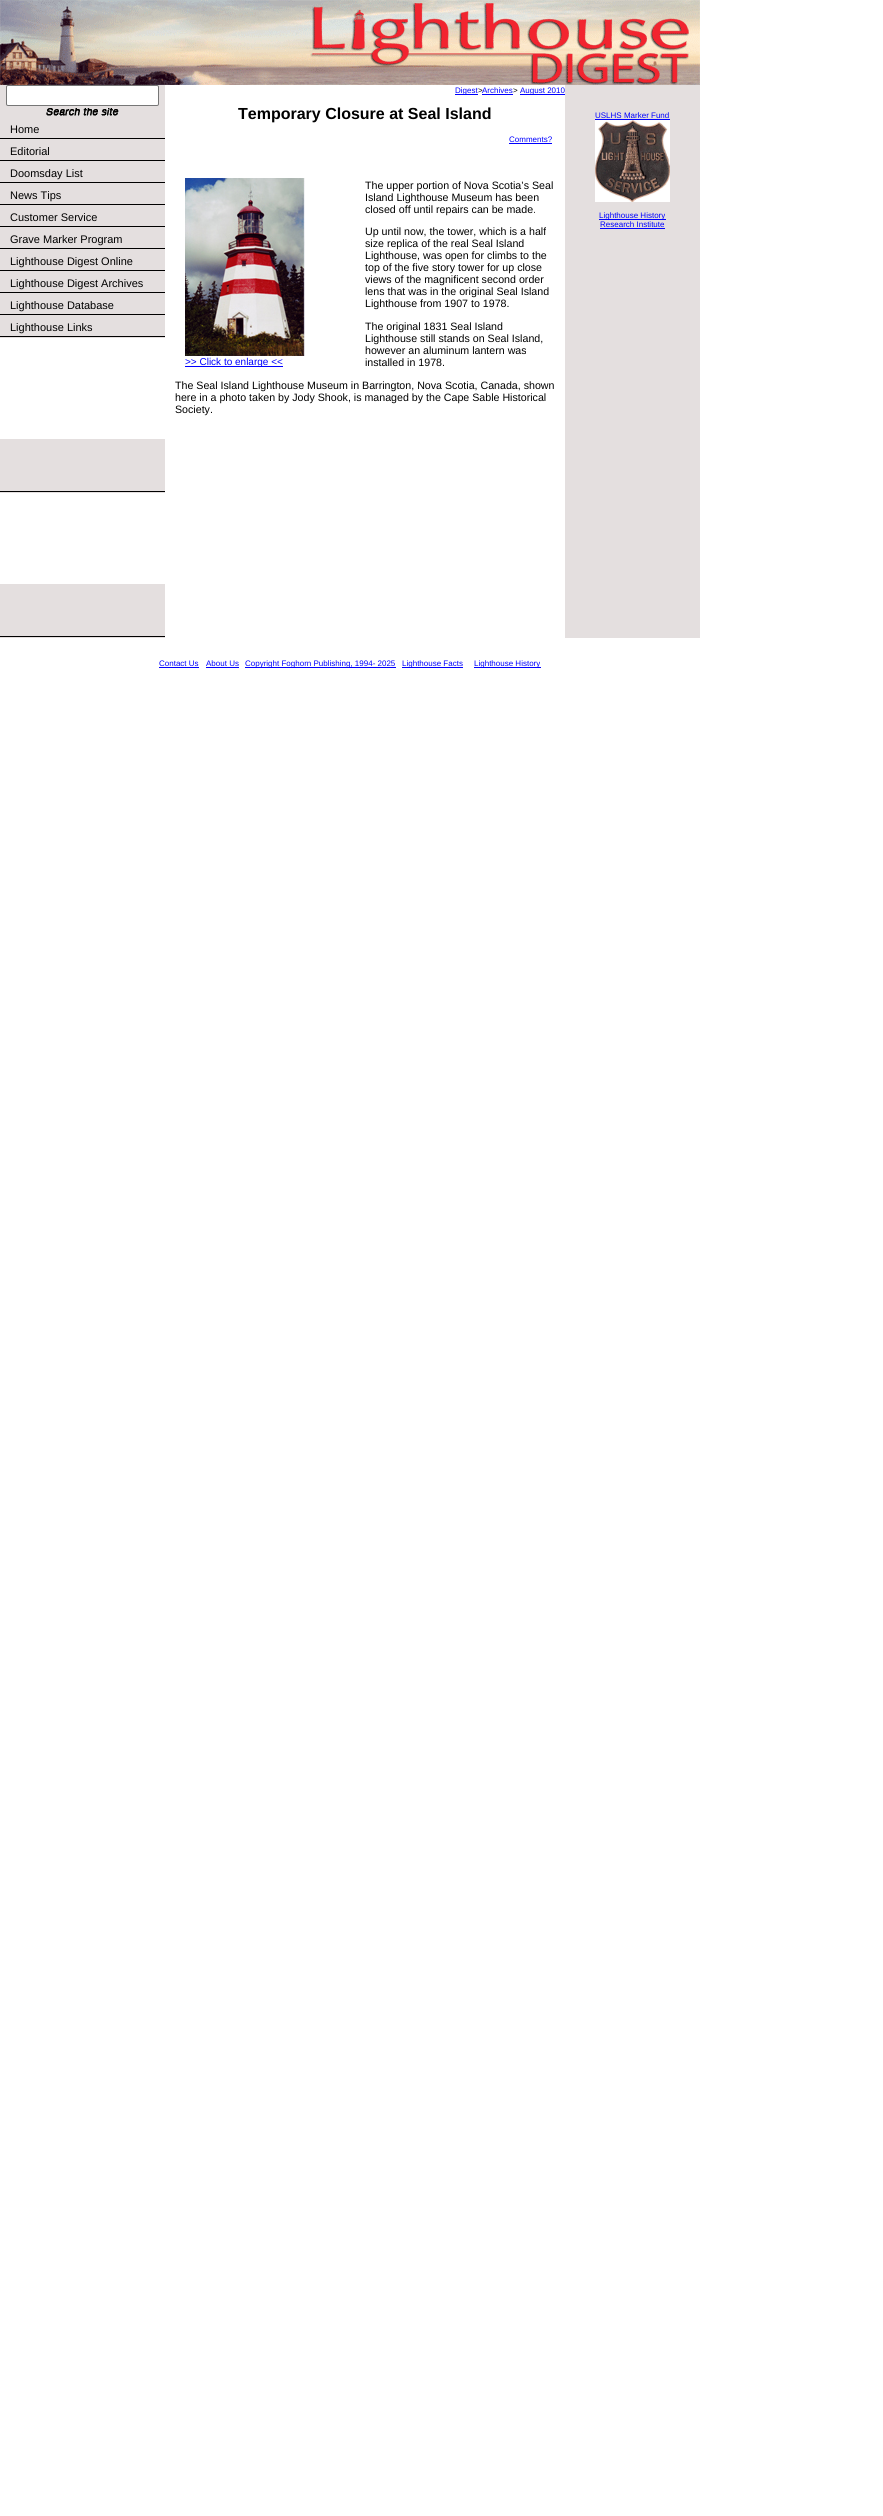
import math
import cairo

surface = cairo.ImageSurface(cairo.Format.RGB24, 883, 2516)
ctx = cairo.Context(surface)
options = cairo.FontOptions()
options.set_hint_metrics(cairo.HintMetrics.OFF)
options.set_hint_style(cairo.HintStyle.NONE)
ctx.set_font_options(options)
ctx.set_miter_limit(4)


def ink(r, g, b):
    ctx.set_source_rgb(r / 255, g / 255, b / 255)


def write(x, y, s, family, size, color, bold=False, italic=False):
    ctx.select_font_face(family, cairo.FontSlant.ITALIC if italic else cairo.FontSlant.NORMAL, cairo.FontWeight.BOLD if bold else cairo.FontWeight.NORMAL)
    ctx.set_font_size(size)
    ink(*color)
    ctx.move_to(x, y)
    ctx.show_text(s)


def block(x, y, w, h, *color):
    ink(*color)
    ctx.rectangle(x, y, w, h)
    ctx.fill()


def round_path(x, y, w, h, r):
    ctx.new_sub_path()
    for i, (u, v) in enumerate([(x + w - r, y + h - r), (x + r, y + h - r), (x + r, y + r), (x + w - r, y + r)]):
        ctx.arc(u, v, r, i * math.pi / 2, (i + 1) * math.pi / 2)
    ctx.close_path()


def paste(path, x, y, w, h):
    ctx.save()
    ctx.set_source_surface(cairo.ImageSurface.create_from_png(path), x, y)
    ctx.rectangle(x, y, w, h)
    ctx.fill()
    ctx.restore()


s1 = dict(family="Liberation Sans", size=11, color=(0, 0, 0))
s2 = dict(family="Liberation Sans", size=8, color=(0, 0, 255))
s3 = dict(family="Liberation Sans", size=8, color=(0, 0, 0))
s4 = dict(family="Liberation Sans", size=16, color=(0, 0, 0), bold=True)
s5 = dict(family="Liberation Sans", size=10.65, color=(0, 0, 0))
s6 = dict(family="Liberation Sans", size=10, color=(0, 0, 255))

ink(255, 255, 255)
ctx.paint()
paste("pic1.png", 0, 0, 700, 85)
block(0, 85, 165, 33, 228, 223, 223)
ink(255, 255, 255)
round_path(6.5, 85.5, 152, 20, 1.5)
ctx.fill_preserve()
ink(118, 118, 118)
ctx.set_line_width(1)
ctx.stroke()
paste("pic2.png", 46, 108, 73, 8)
paste("pic3.png", 0, 118, 165, 22)
write(10, 133, "Home", **s1)
paste("pic3.png", 0, 140, 165, 22)
write(10, 155, "Editorial", **s1)
paste("pic3.png", 0, 162, 165, 22)
write(10, 177, "Doomsday List", **s1)
paste("pic3.png", 0, 184, 165, 22)
write(10, 199, "News Tips", **s1)
paste("pic3.png", 0, 206, 165, 22)
write(10, 221, "Customer Service", **s1)
paste("pic3.png", 0, 228, 165, 22)
write(10, 243, "Grave Marker Program", **s1)
paste("pic3.png", 0, 250, 165, 22)
write(10, 265, "Lighthouse Digest Online", **s1)
paste("pic3.png", 0, 272, 165, 22)
write(10, 287, "Lighthouse Digest Archives", **s1)
paste("pic3.png", 0, 294, 165, 22)
write(10, 309, "Lighthouse Database", **s1)
paste("pic3.png", 0, 316, 165, 22)
write(10, 331, "Lighthouse Links", **s1)
paste("pic4.png", 0, 439, 165, 54)
paste("pic4.png", 0, 584, 165, 54)
block(455, 94, 23, 1, 0, 0, 255)
write(455, 93, "Digest", **s2)
write(478, 93, ">", **s3)
write(482, 93, "Archives", **s2)
block(482, 94, 31, 1, 0, 0, 255)
write(513, 93, ">", **s3)
block(520, 94, 45, 1, 0, 0, 255)
write(520, 93, "August 2010", **s2)
write(238, 119, "Temporary Closure at Seal Island", **s4)
write(509, 142, "Comments?", **s2)
block(509, 143, 43, 1, 0, 0, 255)
write(365, 189, "The upper portion of Nova Scotia’s Seal", **s5)
write(365, 201, "Island Lighthouse Museum has been", **s5)
write(365, 213, "closed off until repairs can be made.", **s5)
write(365, 235, "Up until now, the tower, which is a half", **s5)
write(365, 247, "size replica of the real Seal Island", **s5)
write(365, 259, "Lighthouse, was open for climbs to the", **s5)
write(365, 271, "top of the five story tower for up close", **s5)
write(365, 283, "views of the magnificent second order", **s5)
write(365, 295, "lens that was in the original Seal Island", **s5)
write(365, 307, "Lighthouse from 1907 to 1978.", **s5)
paste("pic5.png", 185, 178, 120, 178)
block(185, 366, 98, 1, 0, 0, 255)
write(185, 365, ">> Click to enlarge <<", **s6)
write(365, 330, "The original 1831 Seal Island", **s5)
write(365, 342, "Lighthouse still stands on Seal Island,", **s5)
write(365, 354, "however an aluminum lantern was", **s5)
write(365, 366, "installed in 1978.", **s5)
write(175, 389, "The Seal Island Lighthouse Museum in Barrington, Nova Scotia, Canada, shown", **s5)
write(175, 401, "here in a photo taken by Jody Shook, is managed by the Cape Sable Historical", **s5)
write(175, 413, "Society.", **s5)
block(565, 85, 135, 553, 228, 223, 223)
write(595, 118, "USLHS Marker Fund", **s2)
block(595, 119, 75, 1, 0, 0, 255)
paste("pic6.png", 595, 120, 75, 82)
block(599, 219, 67, 1, 0, 0, 255)
write(599, 218, "Lighthouse History", **s2)
write(600, 227, "Research Institute", **s2)
block(600, 228, 65, 1, 0, 0, 255)
write(159, 666, "Contact Us", **s2)
block(159, 667, 40, 1, 0, 0, 255)
write(206, 666, "About Us", **s2)
block(206, 667, 33, 1, 0, 0, 255)
block(245, 667, 151, 1, 0, 0, 255)
write(245, 666, "Copyright Foghorn Publishing, 1994- 2025", **s2)
block(402, 667, 61, 1, 0, 0, 255)
write(402, 666, "Lighthouse Facts", **s2)
block(474, 667, 67, 1, 0, 0, 255)
write(474, 666, "Lighthouse History", **s2)
surface.write_to_png("screenshot.png")
